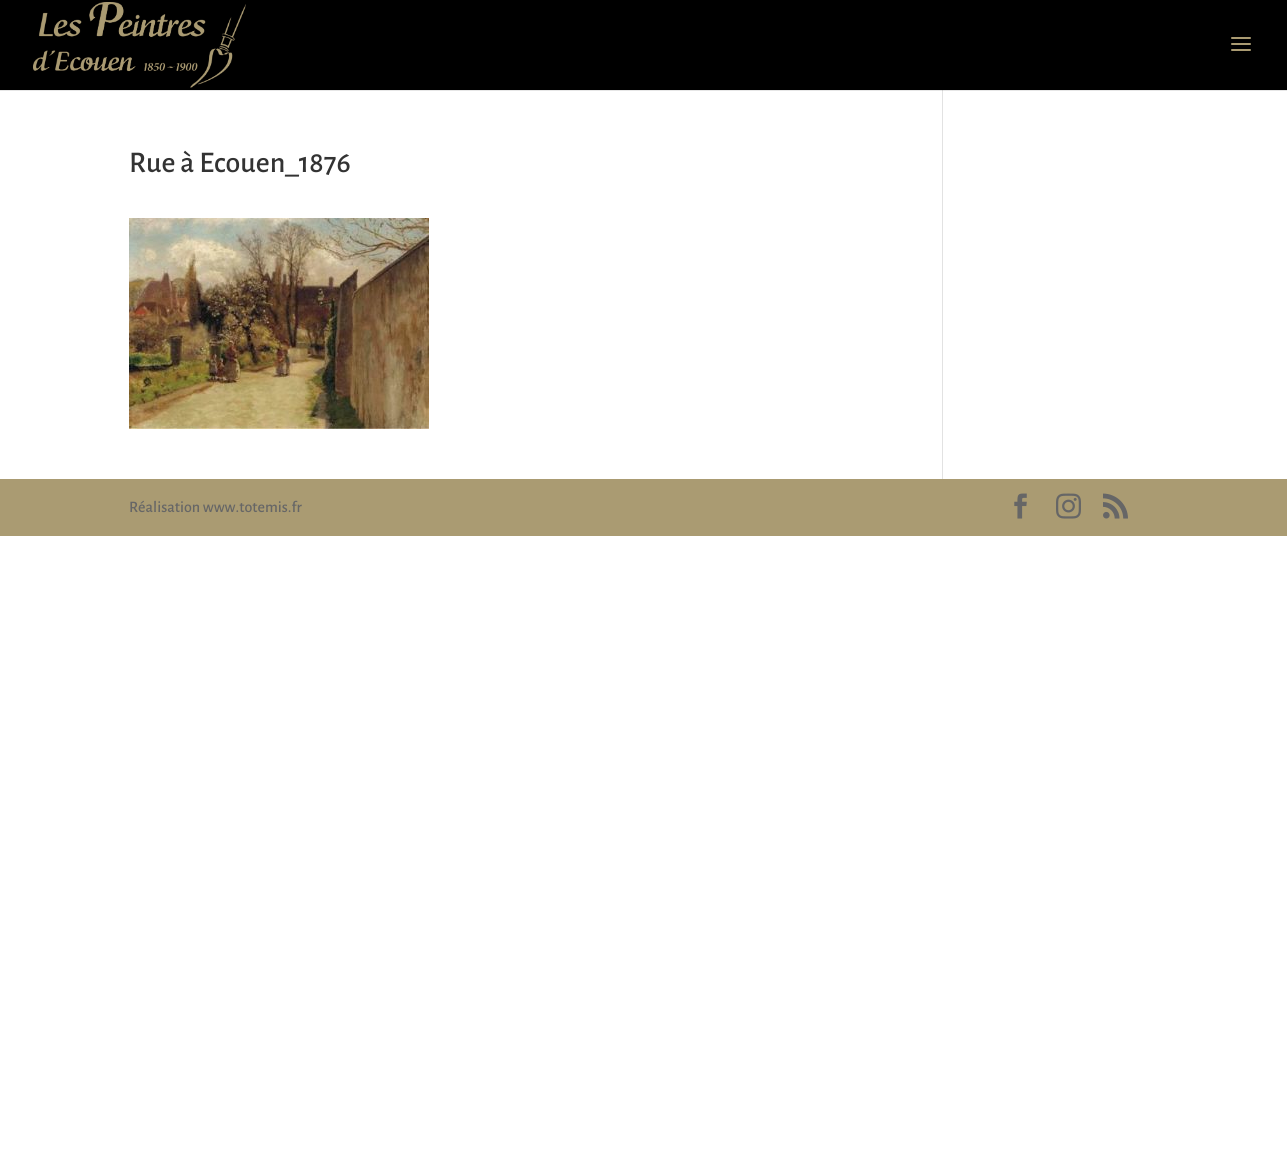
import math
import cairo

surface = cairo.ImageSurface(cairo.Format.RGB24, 1287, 1173)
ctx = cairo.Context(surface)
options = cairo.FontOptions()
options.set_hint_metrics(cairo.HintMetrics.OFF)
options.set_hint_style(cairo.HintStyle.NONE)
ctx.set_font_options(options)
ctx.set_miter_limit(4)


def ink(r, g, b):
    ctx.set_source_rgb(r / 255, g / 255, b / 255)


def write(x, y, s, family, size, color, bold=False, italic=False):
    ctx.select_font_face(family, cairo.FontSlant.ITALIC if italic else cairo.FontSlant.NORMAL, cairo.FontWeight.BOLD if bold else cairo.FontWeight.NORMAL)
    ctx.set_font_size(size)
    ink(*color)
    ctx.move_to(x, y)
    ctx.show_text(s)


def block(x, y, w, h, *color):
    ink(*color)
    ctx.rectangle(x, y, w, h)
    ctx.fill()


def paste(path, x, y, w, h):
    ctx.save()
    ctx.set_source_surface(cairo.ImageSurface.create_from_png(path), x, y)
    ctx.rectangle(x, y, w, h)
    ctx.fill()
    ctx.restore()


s1 = dict(family="Alegreya Sans Medium", size=30, color=(51, 51, 51))
s2 = dict(family="Alegreya Sans Medium", size=16, color=(102, 102, 102))

ink(255, 255, 255)
ctx.paint()
block(0, 90, 1287, 1, 230, 230, 230)
block(0, 0, 1287, 90, 0, 0, 0)
paste("pic1.png", 33, 2, 213, 86)
paste("pic2.png", 1231, 37, 20, 14)
write(129, 172, "Rue à Ecouen_1876", **s1)
paste("pic3.png", 129, 218, 300, 211)
block(942, 90, 1, 389, 226, 226, 226)
block(942, 90, 1, 1, 203, 203, 203)
block(0, 479, 1287, 57, 170, 155, 114)
write(129, 512, "Réalisation www.totemis.fr", **s2)
paste("pic4.png", 1014, 493, 13, 26)
paste("pic5.png", 1056, 493, 25, 26)
paste("pic6.png", 1103, 493, 25, 26)
surface.write_to_png("screenshot.png")
